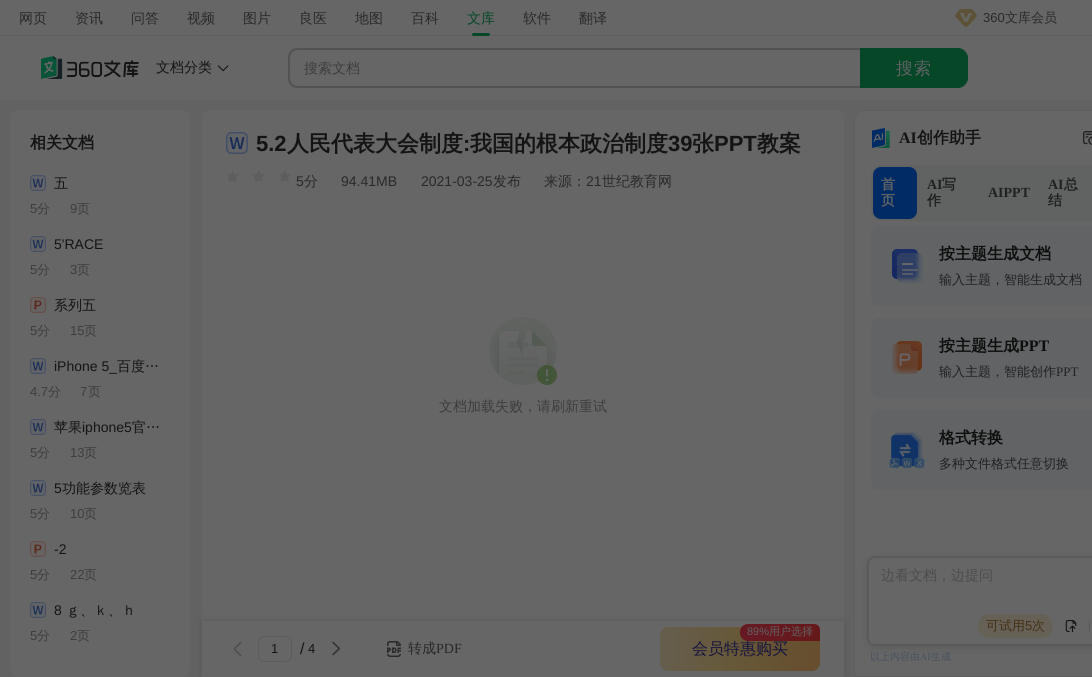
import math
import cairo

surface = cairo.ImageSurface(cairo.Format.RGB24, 1092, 677)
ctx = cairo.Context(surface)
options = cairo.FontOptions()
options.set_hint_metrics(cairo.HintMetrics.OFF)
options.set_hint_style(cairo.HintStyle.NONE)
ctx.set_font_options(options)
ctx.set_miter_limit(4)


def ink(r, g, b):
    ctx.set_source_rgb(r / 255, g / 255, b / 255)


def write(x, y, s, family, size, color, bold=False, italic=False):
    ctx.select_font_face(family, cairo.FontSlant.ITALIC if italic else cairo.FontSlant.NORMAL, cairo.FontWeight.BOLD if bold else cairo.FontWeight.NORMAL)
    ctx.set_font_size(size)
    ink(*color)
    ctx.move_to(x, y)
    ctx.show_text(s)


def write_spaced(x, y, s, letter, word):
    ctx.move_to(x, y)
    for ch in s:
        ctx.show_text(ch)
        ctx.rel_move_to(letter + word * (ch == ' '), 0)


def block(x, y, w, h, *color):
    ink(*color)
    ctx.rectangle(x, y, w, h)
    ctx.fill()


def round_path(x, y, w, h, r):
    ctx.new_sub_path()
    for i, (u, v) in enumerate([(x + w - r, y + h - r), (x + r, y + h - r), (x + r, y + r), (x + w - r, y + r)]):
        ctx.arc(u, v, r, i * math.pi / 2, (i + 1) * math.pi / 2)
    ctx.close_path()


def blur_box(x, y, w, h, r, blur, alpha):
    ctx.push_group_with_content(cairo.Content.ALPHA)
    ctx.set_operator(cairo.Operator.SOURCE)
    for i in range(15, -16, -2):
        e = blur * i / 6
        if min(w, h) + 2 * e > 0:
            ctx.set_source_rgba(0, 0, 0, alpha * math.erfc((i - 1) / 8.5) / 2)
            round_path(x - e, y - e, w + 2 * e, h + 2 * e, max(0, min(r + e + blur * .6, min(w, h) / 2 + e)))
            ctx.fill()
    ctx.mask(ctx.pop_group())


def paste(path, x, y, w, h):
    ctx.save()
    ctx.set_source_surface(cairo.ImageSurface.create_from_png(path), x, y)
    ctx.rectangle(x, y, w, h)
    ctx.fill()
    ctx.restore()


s1 = dict(family="WenQuanYi Zen Hei Medium", size=14, color=(41, 41, 41))
s2 = dict(family="WenQuanYi Zen Hei Medium", size=14, color=(6, 71, 40))
s3 = dict(family="Liberation Sans", size=13, color=(41, 41, 41))
s4 = dict(family="WenQuanYi Zen Hei Medium", size=13, color=(41, 41, 41))
s5 = dict(family="WenQuanYi Zen Hei Medium", size=14, color=(20, 20, 20))
s6 = dict(family="WenQuanYi Zen Hei Medium", size=14, color=(61, 61, 61))
s7 = dict(family="WenQuanYi Zen Hei", size=16, color=(20, 20, 20), bold=True)
s8 = dict(family="Liberation Sans", size=13, color=(61, 61, 61))
s9 = dict(family="WenQuanYi Zen Hei Medium", size=13, color=(61, 61, 61))
s10 = dict(family="Liberation Sans", size=14, color=(20, 20, 20))
s11 = dict(family="Liberation Sans", size=22, color=(20, 20, 20), bold=True)
s12 = dict(family="WenQuanYi Zen Hei", size=22, color=(20, 20, 20), bold=True)
s13 = dict(family="Liberation Sans", size=14, color=(41, 41, 41))
s14 = dict(family="Liberation Sans", size=13, color=(20, 20, 20))
s15 = dict(family="Liberation Sans", size=16, color=(20, 20, 20))
s16 = dict(family="Liberation Serif", size=14, color=(41, 41, 41))
s17 = dict(family="WenQuanYi Zen Hei Medium", size=16, color=(21, 20, 63))
s18 = dict(family="Liberation Sans", size=11, color=(97, 98, 100))
s19 = dict(family="WenQuanYi Zen Hei Medium", size=11, color=(97, 98, 100))
s20 = dict(family="Liberation Serif", size=16, color=(20, 20, 20), bold=True)
s21 = dict(family="WenQuanYi Zen Hei", size=14, color=(97, 98, 100), bold=True)
s22 = dict(family="Liberation Serif", size=14, color=(32, 33, 34), bold=True)
s23 = dict(family="WenQuanYi Zen Hei", size=14, color=(32, 33, 34), bold=True)
s24 = dict(family="WenQuanYi Zen Hei", size=16, color=(13, 14, 14), bold=True)
s25 = dict(family="WenQuanYi Zen Hei Medium", size=13, color=(32, 33, 34))
s26 = dict(family="Liberation Serif", size=16, color=(13, 14, 14), bold=True)
s27 = dict(family="Liberation Serif", size=13, color=(32, 33, 34))
s28 = dict(family="WenQuanYi Zen Hei Medium", size=14, color=(76, 76, 76))
s29 = dict(family="WenQuanYi Zen Hei Medium", size=13, color=(66, 48, 19))
s30 = dict(family="Liberation Sans", size=13, color=(66, 48, 19))
s31 = dict(family="WenQuanYi Zen Hei Medium", size=10, color=(71, 80, 94))
s32 = dict(family="Liberation Serif", size=10, color=(71, 80, 94))

ink(102, 102, 102)
ctx.paint()
block(0, 35, 1092, 1, 95, 95, 95)
write(19, 23, "网页", **s1)
write(75, 23, "资讯", **s1)
write(131, 23, "问答", **s1)
write(187, 23, "视频", **s1)
write(243, 23, "图片", **s1)
write(299, 23, "良医", **s1)
write(355, 23, "地图", **s1)
write(411, 23, "百科", **s1)
write(467, 23, "文库", **s2)
round_path(472, 33, 18, 3, 1.5)
ctx.fill()
write(523, 23, "软件", **s1)
write(579, 23, "翻译", **s1)
paste("pic1.png", 955, 9, 22, 18)
write(983, 22, "360", **s3)
write(1005, 22, "文库会员", **s4)
paste("pic2.png", 41, 56, 98, 23)
write(156, 72, "文档分类", **s5)
paste("pic3.png", 217, 65, 12, 6)
ink(82, 82, 82)
ctx.set_fill_rule(cairo.FillRule.EVEN_ODD)
ctx.new_path()
ctx.move_to(298, 48)
ctx.line_to(860, 48)
ctx.line_to(860, 88)
ctx.line_to(298, 88)
ctx.curve_to(292, 88, 288, 84, 288, 78)
ctx.line_to(288, 58)
ctx.curve_to(288, 52, 292, 48, 298, 48)
ctx.close_path()
ctx.move_to(298, 50)
ctx.line_to(860, 50)
ctx.line_to(860, 86)
ctx.line_to(298, 86)
ctx.curve_to(288, 86, 290, 74, 290, 68)
ctx.curve_to(290, 62, 288, 50, 298, 50)
ctx.close_path()
ctx.fill()
write(304, 73, "搜索文档", **s6)
ink(6, 71, 40)
ctx.new_path()
ctx.move_to(860.5, 48.5)
ctx.line_to(958, 48.5)
ctx.curve_to(963, 48.5, 967.5, 53, 967.5, 58)
ctx.line_to(967.5, 78)
ctx.curve_to(967.5, 83, 963, 87.5, 958, 87.5)
ctx.line_to(860.5, 87.5)
ctx.close_path()
ctx.fill_preserve()
ctx.set_line_width(1)
ctx.stroke()
ctx.set_font_size(17)
ink(97, 98, 100)
write_spaced(896, 74, "搜索", 1, 0)
block(0, 100, 1092, 577, 98, 98, 98)
ink(102, 102, 102)
round_path(10, 110, 180, 567, 8)
ctx.fill()
write(30, 148, "相关文档", **s7)
paste("pic4.png", 30, 175, 16, 16)
write(54, 188, "五", **s5)
write(30, 213, "5", **s8)
write(37, 213, "分", **s9)
write(70, 213, "9", **s8)
write(77, 213, "页", **s9)
paste("pic4.png", 30, 236, 16, 16)
write(54, 249, "5'RACE", **s10)
write(30, 274, "5", **s8)
write(37, 274, "分", **s9)
write(70, 274, "3", **s8)
write(77, 274, "页", **s9)
paste("pic5.png", 30, 297, 16, 16)
write(54, 310, "系列五", **s5)
write(30, 335, "5", **s8)
write(37, 335, "分", **s9)
write(70, 335, "15", **s8)
write(84, 335, "页", **s9)
paste("pic4.png", 30, 358, 16, 16)
write(54, 371, "iPhone 5_", **s10)
write(117, 371, "百度…", **s5)
write(30, 396, "4.7", **s8)
write(48, 396, "分", **s9)
write(80, 396, "7", **s8)
write(88, 396, "页", **s9)
paste("pic4.png", 30, 419, 16, 16)
write(54, 432, "苹果", **s5)
write(82, 432, "iphone5", **s10)
write(132, 432, "官…", **s5)
write(30, 457, "5", **s8)
write(37, 457, "分", **s9)
write(70, 457, "13", **s8)
write(84, 457, "页", **s9)
paste("pic4.png", 30, 480, 16, 16)
write(54, 493, "5", **s10)
write(62, 493, "功能参数览表", **s5)
write(30, 518, "5", **s8)
write(37, 518, "分", **s9)
write(70, 518, "10", **s8)
write(84, 518, "页", **s9)
paste("pic5.png", 30, 541, 16, 16)
write(54, 554, "-2", **s10)
write(30, 579, "5", **s8)
write(37, 579, "分", **s9)
write(70, 579, "22", **s8)
write(84, 579, "页", **s9)
paste("pic4.png", 30, 602, 16, 16)
write(54, 615, "8", **s10)
write(66, 615, "ｇ、ｋ、ｈ", **s5)
write(30, 640, "5", **s8)
write(37, 640, "分", **s9)
write(70, 640, "2", **s8)
write(77, 640, "页", **s9)
ink(102, 102, 102)
ctx.new_path()
ctx.move_to(210, 110)
ctx.line_to(836, 110)
ctx.curve_to(840.5, 110, 844, 113.5, 844, 118)
ctx.line_to(844, 212)
ctx.line_to(202, 212)
ctx.line_to(202, 118)
ctx.curve_to(202, 113.5, 205.5, 110, 210, 110)
ctx.close_path()
ctx.fill()
paste("pic6.png", 226, 132, 22, 22)
write(256, 151, "5.2", **s11)
write(287, 151, "人民代表大会制度", **s12)
write(463, 151, ":", **s11)
write(470, 151, "我国的根本政治制度", **s12)
write(668, 151, "39", **s11)
write(692, 151, "张", **s12)
write(714, 151, "PPT", **s11)
write(757, 151, "教案", **s12)
paste("pic7.png", 227, 170, 12, 12)
paste("pic8.png", 253, 170, 12, 12)
paste("pic7.png", 279, 170, 12, 12)
write(296, 186, "5", **s13)
write(304, 186, "分", **s1)
write(341, 186, "94.41MB", **s13)
write(421, 186, "2021-03-25", **s13)
write(493, 186, "发布", **s1)
write(544, 186, "来源：", **s1)
write(586, 186, "21", **s13)
write(602, 186, "世纪教育网", **s1)
block(202, 212, 642, 409, 102, 102, 102)
paste("pic9.png", 489, 317, 68, 68)
write(439, 411, "文档加载失败，请刷新重试", **s6)
ink(102, 102, 102)
ctx.new_path()
ctx.move_to(866, 110.5)
ctx.line_to(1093, 110.5)
ctx.curve_to(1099.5, 110.5, 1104.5, 115.5, 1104.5, 122)
ctx.line_to(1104.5, 676.5)
ctx.line_to(854.5, 676.5)
ctx.line_to(854.5, 122)
ctx.curve_to(854.5, 115.5, 859.5, 110.5, 866, 110.5)
ctx.close_path()
ctx.fill_preserve()
ink(95, 95, 95)
ctx.stroke()
ink(0, 0, 0)
blur_box(202, 621, 642, 56, 0, 4, 0.12)
block(202, 621, 642, 56, 102, 102, 102)
paste("pic10.png", 234, 641, 8, 16)
round_path(258.5, 636.5, 33, 25, 5.5)
ink(92, 92, 92)
ctx.stroke()
write(271, 653, "1", **s14)
write(300, 654, "/", **s15)
write(308, 653, "4", **s14)
paste("pic11.png", 332, 641, 8, 15)
paste("pic12.png", 387, 641, 14, 16)
write(408, 653, "转成", **s1)
write(436, 653, "PDF", **s16)
gradient = cairo.LinearGradient(660, 648, 887, 652)
gradient.add_color_stop_rgba(0.01, 0.4, 0.369, 0.302, 1)
gradient.add_color_stop_rgba(1, 0.4, 0.298, 0.055, 1)
ctx.set_source(gradient)
round_path(660, 627, 160, 44, 8)
ctx.fill()
gradient = cairo.LinearGradient(659, 645, 952, 660)
gradient.add_color_stop_rgba(0.24, 0.4, 0.263, 0.345, 0)
gradient.add_color_stop_rgba(1, 0.4, 0.263, 0.345, 0.6)
ctx.set_source(gradient)
round_path(660, 627, 160, 44, 8)
ctx.fill()
write(692, 654, "会员特惠购买", **s17)
gradient = cairo.LinearGradient(740, 632, 820, 632)
gradient.add_color_stop_rgba(0, 0.4, 0.098, 0.141, 1)
gradient.add_color_stop_rgba(1, 0.4, 0.098, 0.098, 1)
ctx.set_source(gradient)
ctx.new_path()
ctx.move_to(748, 624)
ctx.line_to(814, 624)
ctx.curve_to(817.5, 624, 820, 626.5, 820, 630)
ctx.line_to(820, 641)
ctx.line_to(748, 641)
ctx.curve_to(743.5, 641, 740, 637.5, 740, 633)
ctx.line_to(740, 632)
ctx.curve_to(740, 627.5, 743.5, 624, 748, 624)
ctx.close_path()
ctx.fill()
write(747, 635, "89%", **s18)
write(769, 635, "用户选择", **s19)
paste("pic13.png", 872, 128, 18, 20)
write(899, 143, "AI", **s20)
write(917, 143, "创作助手", **s7)
paste("pic14.png", 1083, 131, 9, 14)
ink(97, 98, 98)
round_path(871, 165, 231, 56, 10)
ctx.fill()
ink(0, 43, 100)
round_path(873, 167, 44, 52, 8)
ctx.fill()
write(881, 189, "首", **s21)
write(881, 205, "页", **s21)
write(927, 189, "AI", **s22)
write(942, 189, "写", **s23)
write(927, 205, "作", **s23)
write(988, 197, "AIPPT", **s22)
write(1048, 189, "AI", **s22)
write(1064, 189, "总", **s23)
write(1048, 205, "结", **s23)
ink(98, 99, 100)
round_path(871, 226, 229, 80, 8)
ctx.fill()
paste("pic15.png", 892, 249, 31, 34)
write(939, 259, "按主题生成文档", **s24)
write(939, 284, "输入主题，智能生成文档", **s25)
ink(98, 99, 100)
round_path(871, 318, 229, 80, 8)
ctx.fill()
paste("pic16.png", 892, 341, 30, 33)
write(939, 351, "按主题生成", **s24)
write(1019, 351, "PPT", **s26)
write(939, 376, "输入主题，智能创作", **s25)
ctx.save()
ctx.set_fill_rule(cairo.FillRule.WINDING)
ctx.rectangle(939, 362, 139, 20)
ctx.clip()
write(1056, 376, "PPT", **s27)
ctx.restore()
ink(98, 99, 100)
round_path(871, 410, 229, 80, 8)
ctx.fill()
paste("pic17.png", 889, 431, 36, 38)
write(939, 443, "格式转换", **s24)
write(939, 468, "多种文件格式任意切换", **s25)
ink(18, 20, 28)
blur_box(867, 558, 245, 90, 8, 4, 0.12)
ink(102, 102, 102)
round_path(867, 556, 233, 90, 8)
ctx.fill()
round_path(868, 557, 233, 88, 7)
ctx.set_source_rgba(0, 0, 0, 0.12)
ctx.set_line_width(2)
ctx.stroke()
write(881, 580, "边看文档，边提问", **s28)
ink(102, 97, 87)
round_path(978, 614, 75, 24, 12)
ctx.fill()
write(986, 630, "可试用", **s29)
write(1025, 630, "5", **s30)
write(1032, 630, "次", **s29)
paste("pic18.png", 1065, 620, 12, 12)
block(1089, 621, 1, 10, 87, 87, 87)
write(870, 660, "以上内容由", **s31)
write(920, 660, "AI", **s32)
write(931, 660, "生成", **s31)
surface.write_to_png("screenshot.png")
